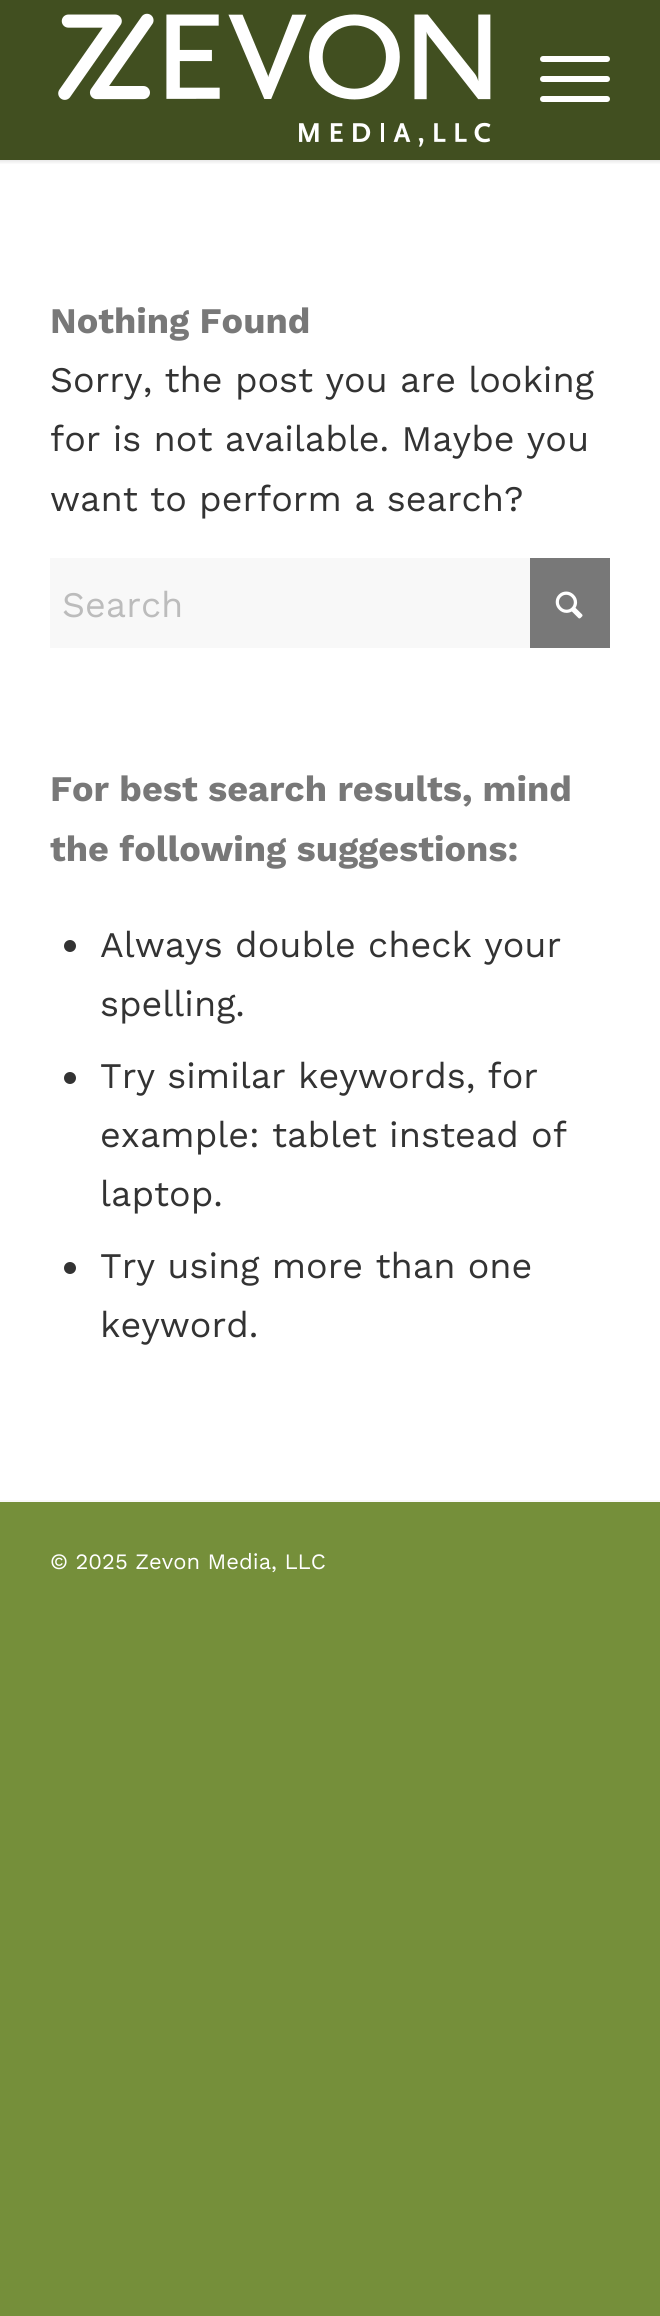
import math
import cairo

surface = cairo.ImageSurface(cairo.Format.RGB24, 660, 2316)
ctx = cairo.Context(surface)
options = cairo.FontOptions()
options.set_hint_metrics(cairo.HintMetrics.OFF)
options.set_hint_style(cairo.HintStyle.NONE)
ctx.set_font_options(options)
ctx.set_miter_limit(4)


def ink(r, g, b):
    ctx.set_source_rgb(r / 255, g / 255, b / 255)


def write(x, y, s, family, size, color, bold=False, italic=False):
    ctx.select_font_face(family, cairo.FontSlant.ITALIC if italic else cairo.FontSlant.NORMAL, cairo.FontWeight.BOLD if bold else cairo.FontWeight.NORMAL)
    ctx.set_font_size(size)
    ink(*color)
    ctx.move_to(x, y)
    ctx.show_text(s)


def block(x, y, w, h, *color):
    ink(*color)
    ctx.rectangle(x, y, w, h)
    ctx.fill()


def round_path(x, y, w, h, r):
    ctx.new_sub_path()
    for i, (u, v) in enumerate([(x + w - r, y + h - r), (x + r, y + h - r), (x + r, y + r), (x + w - r, y + r)]):
        ctx.arc(u, v, r, i * math.pi / 2, (i + 1) * math.pi / 2)
    ctx.close_path()


def blur_box(x, y, w, h, r, blur, alpha):
    ctx.push_group_with_content(cairo.Content.ALPHA)
    ctx.set_operator(cairo.Operator.SOURCE)
    for i in range(15, -16, -2):
        e = blur * i / 6
        if min(w, h) + 2 * e > 0:
            ctx.set_source_rgba(0, 0, 0, alpha * math.erfc((i - 1) / 8.5) / 2)
            round_path(x - e, y - e, w + 2 * e, h + 2 * e, max(0, min(r + e + blur * .6, min(w, h) / 2 + e)))
            ctx.fill()
    ctx.mask(ctx.pop_group())


def paste(path, x, y, w, h):
    ctx.save()
    ctx.set_source_surface(cairo.ImageSurface.create_from_png(path), x, y)
    ctx.rectangle(x, y, w, h)
    ctx.fill()
    ctx.restore()


s1 = dict(family="Work Sans", size=36, color=(120, 120, 120), bold=True)
s2 = dict(family="Work Sans", size=36, color=(51, 51, 51))
s3 = dict(family="Work Sans", size=36, color=(188, 188, 188))
s4 = dict(family="Work Sans", size=22, color=(255, 255, 255))

ink(117, 143, 58)
ctx.paint()
block(0, 0, 660, 160, 65, 79, 32)
block(0, 160, 660, 1340, 255, 255, 255)
ctx.save()
ctx.rectangle(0, 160, 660, 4)
ctx.clip()
ink(0, 0, 0)
blur_box(-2, -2, 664, 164, 0, 2, 0.1)
ctx.restore()
paste("pic1.png", 58, 13, 433, 134)
round_path(540, 76, 70, 6, 3)
ctx.fill()
round_path(540, 56, 70, 6, 3)
ctx.fill()
round_path(540, 96, 70, 6, 3)
ctx.fill()
write(50, 333, "Nothing Found", **s1)
write(50, 392, "Sorry, the post you are looking", **s2)
write(50, 451, "for is not available. Maybe you", **s2)
write(50, 511, "want to perform a search?", **s2)
block(50, 558, 480, 90, 248, 248, 248)
write(62, 617, "Search", **s3)
block(530, 558, 80, 90, 120, 120, 120)
paste("pic2.png", 555, 591, 28, 28)
write(50, 801, "For best search results, mind", **s1)
write(50, 861, "the following suggestions:", **s1)
ink(51, 51, 51)
ctx.new_path()
ctx.arc(70, 946, 6, 0, 2 * math.pi)
ctx.fill()
write(100, 957, "Always double check your", **s2)
write(100, 1016, "spelling.", **s2)
ctx.new_path()
ctx.arc(70, 1078, 6, 0, 2 * math.pi)
ctx.fill()
write(100, 1088, "Try similar keywords, for", **s2)
write(100, 1147, "example: tablet instead of", **s2)
write(100, 1206, "laptop.", **s2)
ctx.new_path()
ctx.arc(70, 1268, 6, 0, 2 * math.pi)
ctx.fill()
write(100, 1278, "Try using more than one", **s2)
write(100, 1337, "keyword.", **s2)
block(0, 1500, 660, 2, 248, 248, 248)
write(50, 1569, "© 2025 Zevon Media, LLC", **s4)
surface.write_to_png("screenshot.png")
